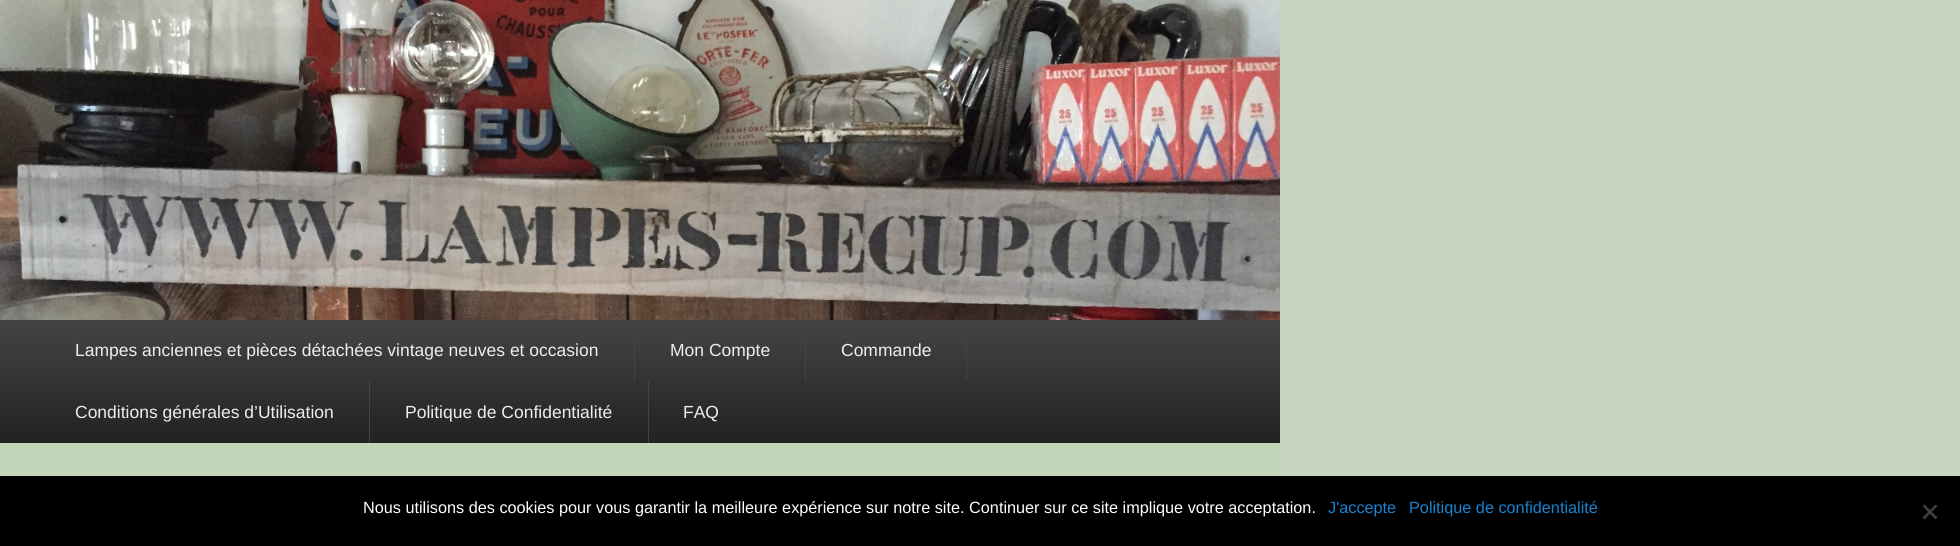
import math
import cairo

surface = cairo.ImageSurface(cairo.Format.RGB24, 1960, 546)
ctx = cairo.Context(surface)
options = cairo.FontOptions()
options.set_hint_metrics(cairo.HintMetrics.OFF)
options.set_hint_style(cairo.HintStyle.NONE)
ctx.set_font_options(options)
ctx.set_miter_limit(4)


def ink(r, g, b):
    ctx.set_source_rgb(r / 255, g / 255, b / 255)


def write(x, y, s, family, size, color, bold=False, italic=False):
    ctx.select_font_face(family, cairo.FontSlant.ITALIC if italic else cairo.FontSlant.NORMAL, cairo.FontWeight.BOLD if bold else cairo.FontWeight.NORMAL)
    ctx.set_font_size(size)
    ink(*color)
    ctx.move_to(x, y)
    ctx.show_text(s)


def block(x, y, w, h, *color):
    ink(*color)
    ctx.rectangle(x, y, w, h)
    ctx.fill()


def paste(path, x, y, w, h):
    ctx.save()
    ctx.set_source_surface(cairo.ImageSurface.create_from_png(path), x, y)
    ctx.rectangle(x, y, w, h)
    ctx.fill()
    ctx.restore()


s1 = dict(family="Liberation Sans", size=17.5, color=(238, 238, 238))
s2 = dict(family="Liberation Sans", size=16.25, color=(255, 255, 255))
s3 = dict(family="Liberation Sans", size=16.25, color=(25, 130, 209))

ink(199, 214, 190)
ctx.paint()
paste("pic1.png", 0, 0, 1280, 320)
gradient = cairo.LinearGradient(640, 320, 640, 443)
gradient.add_color_stop_rgba(0, 0.267, 0.267, 0.267, 1)
gradient.add_color_stop_rgba(1, 0.133, 0.133, 0.133, 1)
ctx.set_source(gradient)
ctx.rectangle(0, 320, 1280, 123)
ctx.fill()
block(634, 329, 1, 52, 68, 68, 68)
write(75, 356, "Lampes anciennes et pièces détachées vintage neuves et occasion", **s1)
block(805, 329, 1, 52, 68, 68, 68)
write(670, 356, "Mon Compte", **s1)
block(966, 329, 1, 52, 68, 68, 68)
write(841, 356, "Commande", **s1)
block(369, 381, 1, 62, 68, 68, 68)
write(75, 418, "Conditions générales d’Utilisation", **s1)
block(648, 381, 1, 62, 68, 68, 68)
write(405, 418, "Politique de Confidentialité", **s1)
write(683, 418, "FAQ", **s1)
block(0, 443, 1280, 33, 196, 214, 186)
block(0, 476, 1960, 70, 0, 0, 0)
write(363, 513, "Nous utilisons des cookies pour vous garantir la meilleure expérience sur notre site. Continuer sur ce site implique votre acceptation.", **s2)
write(1328, 513, "J'accepte", **s3)
write(1409, 513, "Politique de confidentialité", **s3)
ink(64, 64, 64)
ctx.new_path()
ctx.move_to(1935.5, 504.5)
ctx.line_to(1937.5, 506)
ctx.line_to(1924.5, 519.5)
ctx.line_to(1922.5, 517.5)
ctx.close_path()
ctx.fill()
ctx.new_path()
ctx.move_to(1922.5, 506)
ctx.line_to(1924.5, 504.5)
ctx.line_to(1937.5, 517.5)
ctx.line_to(1935.5, 519.5)
ctx.close_path()
ctx.fill()
surface.write_to_png("screenshot.png")
